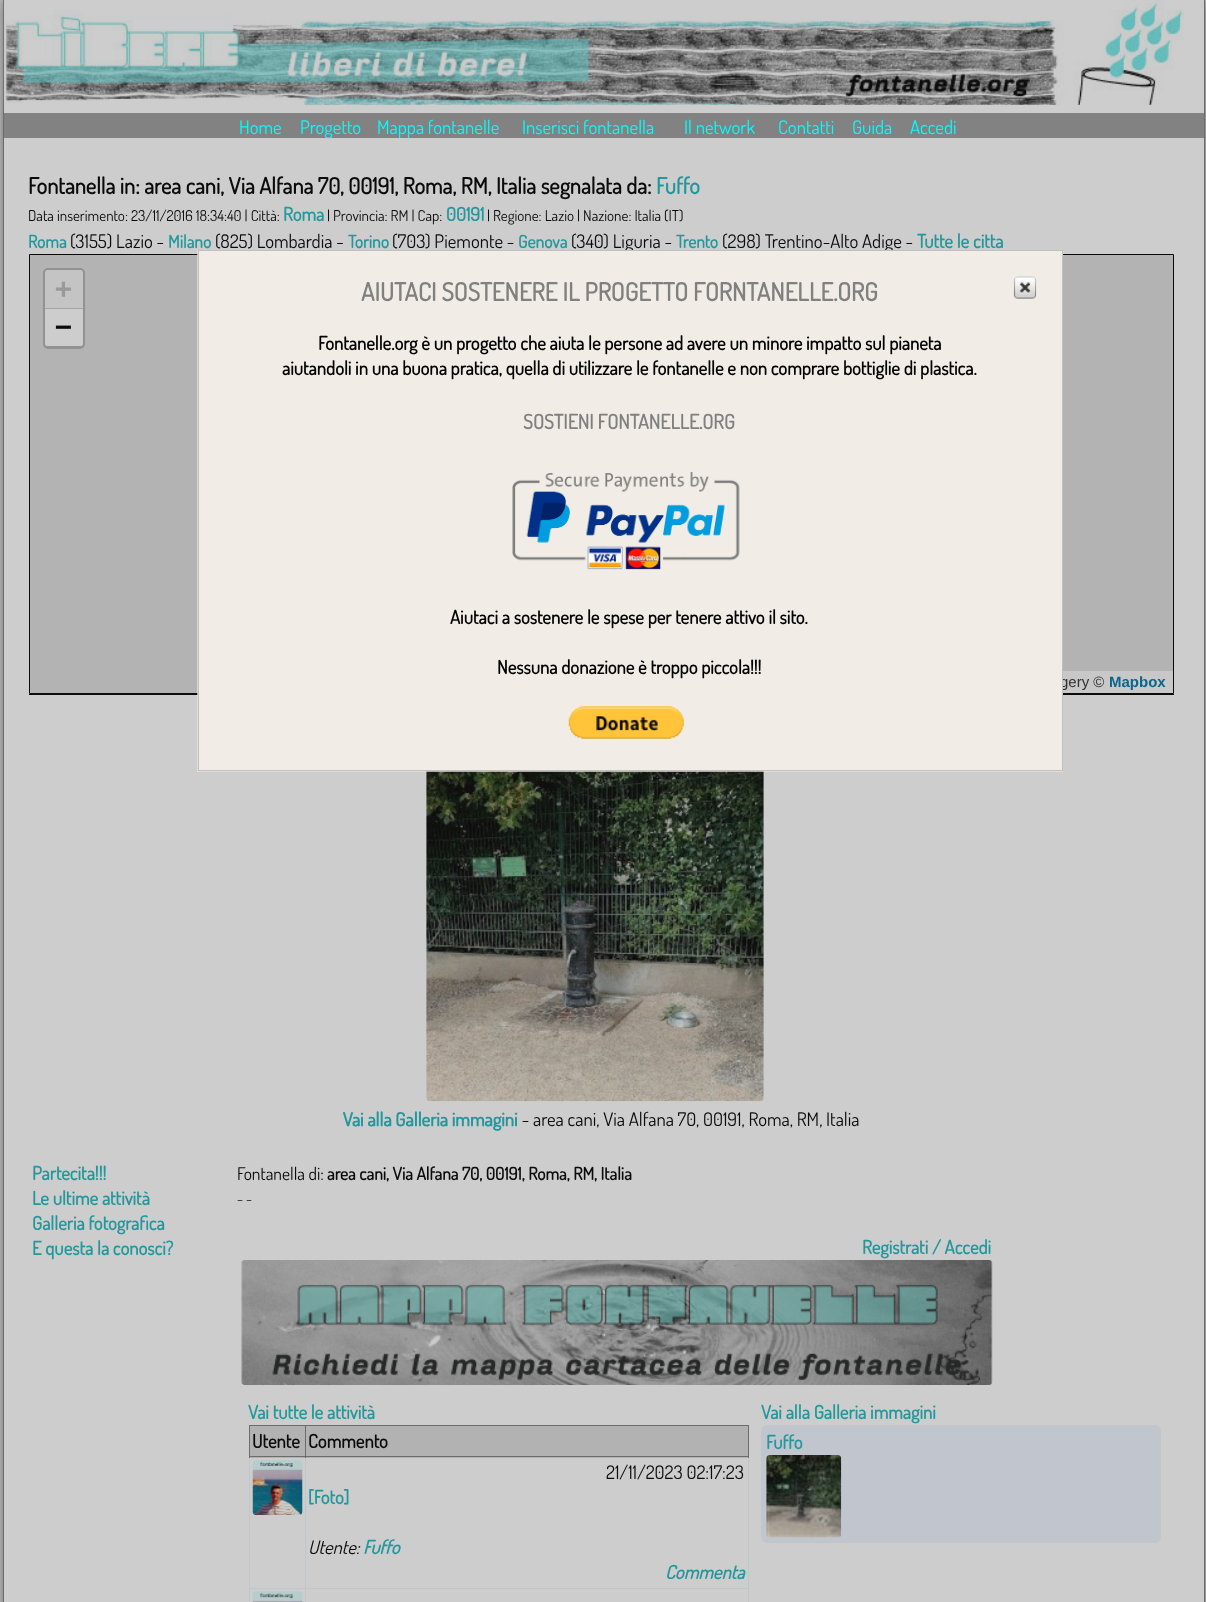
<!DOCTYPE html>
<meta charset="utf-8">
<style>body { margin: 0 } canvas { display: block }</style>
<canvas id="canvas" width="1206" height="1602"></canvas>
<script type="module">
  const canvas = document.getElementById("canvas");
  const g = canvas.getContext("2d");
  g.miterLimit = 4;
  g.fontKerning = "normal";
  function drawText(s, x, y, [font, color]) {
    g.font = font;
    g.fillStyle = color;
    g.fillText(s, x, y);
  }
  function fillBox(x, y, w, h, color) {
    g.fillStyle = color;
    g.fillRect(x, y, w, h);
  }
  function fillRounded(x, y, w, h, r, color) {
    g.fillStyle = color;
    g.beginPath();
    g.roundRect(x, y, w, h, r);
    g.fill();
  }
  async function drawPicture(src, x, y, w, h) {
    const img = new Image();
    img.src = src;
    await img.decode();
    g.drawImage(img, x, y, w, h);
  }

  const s1 = ["18.75px Dosis", "#00FFFF"];
  const s2 = ["bold 22.5px Dosis", "#0B0B0B"];
  const s3 = ["bold 22.5px Dosis", "#23989C"];
  const s4 = ["15px Dosis", "#0B0B0B"];
  const s5 = ["bold 18.75px Dosis", "#23989C"];
  const s6 = ["bold 17.5px Dosis", "#23989C"];
  const s7 = ["18.75px Dosis", "#0B0B0B"];
  const s8 = ["bold 28px DejaVu Sans Mono", "#999999"];
  const s9 = ["bold 28px DejaVu Sans Mono", "#0B0B0B"];
  const s10 = ["15px Liberation Sans", "#323232"];
  const s11 = ["bold 15px Liberation Sans", "#0B668B"];
  const s12 = ["17.5px Dosis", "#0B0B0B"];
  const s13 = ["bold 17.5px Dosis", "#0B0B0B"];
  const s14 = ["bold 18.75px Dosis", "#0B0B0B"];
  const s15 = ["italic 18.75px Dosis", "#0B0B0B"];
  const s16 = ["italic bold 18.75px Dosis", "#23989C"];
  const s17 = ["bold 25px Dosis", "#808080"];
  const s18 = ["bold 18.75px Dosis", "#000000"];
  const s19 = ["bold 20px Dosis", "#808080"];

  fillBox(0, 0, 1206, 1602, "#C0C0C0");
  g.fillStyle = "#6C6C6C";
  g.filter = "blur(6px)";
  g.beginPath();
  g.rect(3, 0, 1202, 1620);
  g.fill();
  g.filter = "none";
  fillBox(4, 0, 1200, 1602, "#CDCDCD");
  fillBox(1204, 0, 1, 1602, "#6C6C6C");
  fillBox(3, 0, 1, 1602, "#6C6C6C");
  await drawPicture("pic1.png", 3, 0, 1182, 105);
  fillBox(4, 113, 1200, 25, "#828282");
  drawText("Home", 239, 134, s1);
  drawText("Progetto", 300, 134, s1);
  drawText("Mappa fontanelle", 377, 134, s1);
  drawText("Inserisci fontanella", 522, 134, s1);
  drawText("Il network", 684, 134, s1);
  drawText("Contatti", 778, 134, s1);
  drawText("Guida", 852, 134, s1);
  drawText("Accedi", 910, 134, s1);
  drawText("Fontanella in: area cani, Via Alfana 70, 00191, Roma, RM, Italia segnalata da:", 28, 194, s2);
  drawText("Fuffo", 656, 194, s3);
  drawText("Data inserimento: 23/11/2016 18:34:40 | Città:", 28, 221, s4);
  drawText("Roma", 283, 221, s5);
  drawText("| Provincia: RM | Cap:", 327, 221, s4);
  drawText("00191", 446, 221, s5);
  drawText("| Regione: Lazio | Nazione: Italia (IT)", 487, 221, s4);
  drawText("Roma", 28, 248, s6);
  drawText("(3155) Lazio -", 70, 248, s7);
  drawText("Milano", 168, 248, s6);
  drawText("(825) Lombardia -", 215, 248, s7);
  drawText("Torino", 348, 248, s6);
  drawText("(703) Piemonte -", 392, 248, s7);
  drawText("Genova", 518, 248, s6);
  drawText("(340) Liguria -", 571, 248, s7);
  drawText("Trento", 676, 248, s6);
  drawText("(298) Trentino-Alto Adige -", 722, 248, s7);
  drawText("Tutte le citta", 917, 248, s5);
  g.fillStyle = "#B3B3B3";
  g.beginPath();
  g.rect(29.5, 254.5, 1144, 439);
  g.fill();
  g.strokeStyle = "#0B0B0B";
  g.stroke();
  g.beginPath();
  g.roundRect(44.5, 269.5, 39, 78, 3.5);
  g.strokeStyle = "#929292";
  g.lineWidth = 3;
  g.stroke();
  g.fillStyle = "#C4C4C4";
  g.beginPath();
  g.roundRect(45, 270, 38, 39, [2.5, 2.5, 0, 0]);
  g.fill();
  fillBox(45, 308, 38, 1, "#A6A6A6");
  drawText("+", 55, 298, s8);
  g.fillStyle = "#CDCDCD";
  g.beginPath();
  g.roundRect(45, 309, 38, 37, [0, 0, 2.5, 2.5]);
  g.fill();
  drawText("−", 55, 336, s9);
  fillBox(1063, 671, 110, 22, "#C8C8C8");
  drawText("gery ©", 1060, 687, s10);
  drawText("Mapbox", 1109, 687, s11);
  fillBox(29, 694, 1145, 1, "#0B0B0B");
  await drawPicture("pic2.png", 343, 771, 516, 360);
  drawText("Partecita!!!", 32, 1180, s5);
  drawText("Le ultime attività", 32, 1205, s5);
  drawText("Galleria fotografica", 32, 1230, s5);
  drawText("E questa la conosci?", 32, 1255, s5);
  drawText("Fontanella di:", 237, 1180, s12);
  drawText("area cani, Via Alfana 70, 00191, Roma, RM, Italia", 327, 1180, s13);
  drawText("- -", 237, 1204, s4);
  drawText("Registrati / Accedi", 862, 1254, s5);
  await drawPicture("pic3.png", 241, 1260, 752, 125);
  drawText("Vai tutte le attività", 248, 1419, s5);
  fillBox(250, 1426, 498, 32, "#B2B2B2");
  fillBox(305, 1425, 444, 1, "#6C6C6C");
  fillBox(305, 1588, 444, 1, "#C1C5CD");
  fillBox(748, 1456, 1, 146, "#C1C5CD");
  fillBox(748, 1425, 1, 33, "#6C6C6C");
  fillBox(305, 1588, 1, 14, "#C1C5CD");
  fillBox(249, 1588, 57, 1, "#C1C5CD");
  fillBox(305, 1456, 1, 133, "#C1C5CD");
  fillBox(305, 1456, 444, 1, "#6C6C6C");
  fillBox(305, 1425, 1, 33, "#6C6C6C");
  fillBox(249, 1425, 57, 1, "#6C6C6C");
  fillBox(249, 1456, 1, 146, "#C1C5CD");
  fillBox(249, 1456, 57, 1, "#6C6C6C");
  fillBox(249, 1425, 1, 33, "#6C6C6C");
  drawText("Utente", 252, 1448, s14);
  drawText("Commento", 308, 1448, s14);
  await drawPicture("pic4.png", 252, 1591, 51, 11);
  await drawPicture("pic5.png", 252, 1460, 51, 55);
  drawText("21/11/2023 02:17:23", 606, 1479, s7);
  drawText("[Foto]", 308, 1504, s5);
  drawText("Utente:", 308, 1554, s15);
  drawText("Fuffo", 363, 1554, s16);
  drawText("Commenta", 665, 1579, s16);
  drawText("Vai alla Galleria immagini", 761, 1419, s5);
  fillRounded(761, 1425, 400, 118, 6, "#C1C5CD");
  drawText("Fuffo", 766, 1449, s5);
  await drawPicture("pic6.png", 766, 1455, 76, 83);
  fillBox(199, 251, 863, 519, "#FFFFFF");
  fillBox(197, 250, 866, 522, "rgba(235, 230, 220, 0.71)");
  g.strokeStyle = "#C0C0C0";
  g.lineWidth = 1;
  g.strokeRect(198.5, 250.5, 864, 520);
  drawText("AIUTACI SOSTENERE IL PROGETTO FORNTANELLE.ORG", 361, 301, s17);
  await drawPicture("pic7.png", 1013, 276, 24, 23);
  drawText("Fontanelle.org è un progetto che aiuta le persone ad avere un minore impatto sul pianeta", 318, 350, s18);
  drawText("aiutandoli in una buona pratica, quella di utilizzare le fontanelle e non comprare bottiglie di plastica.", 282, 375, s18);
  drawText("SOSTIENI FONTANELLE.ORG", 523, 429, s19);
  await drawPicture("pic8.png", 512, 472, 228, 98);
  drawText("Aiutaci a sostenere le spese per tenere attivo il sito.", 450, 624, s18);
  drawText("Nessuna donazione è troppo piccola!!!", 497, 674, s18);
  await drawPicture("pic9.png", 568, 706, 116, 33);
</script>
